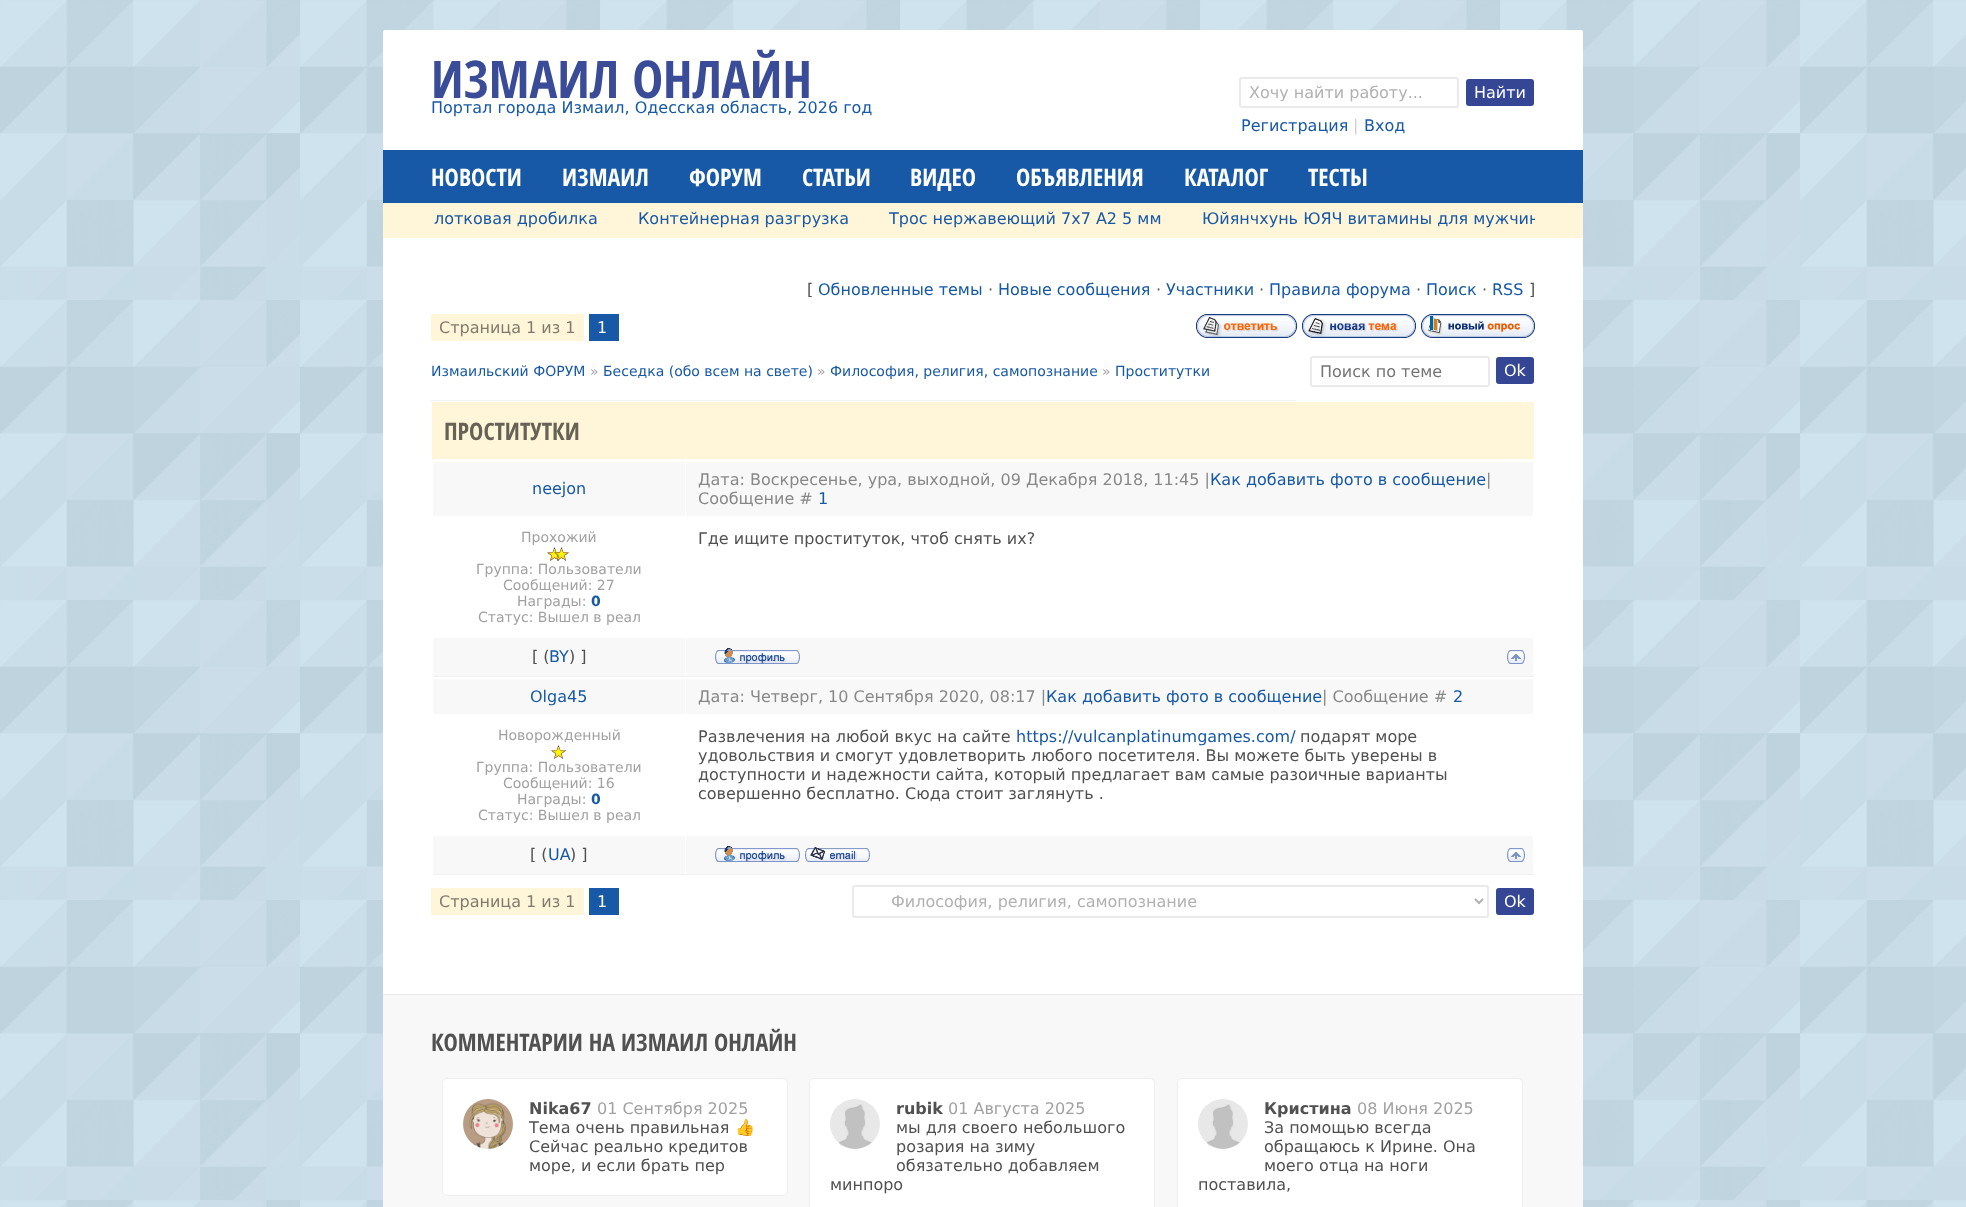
<!DOCTYPE html>
<meta charset="utf-8">
<style>body { margin: 0 } canvas { display: block }</style>
<canvas id="canvas" width="1966" height="1207"></canvas>
<script type="module">
  const canvas = document.getElementById("canvas");
  const g = canvas.getContext("2d");
  g.miterLimit = 4;
  g.fontKerning = "normal";
  function drawText(s, x, y, [font, color]) {
    g.font = font;
    g.fillStyle = color;
    g.fillText(s, x, y);
  }
  function fillBox(x, y, w, h, color) {
    g.fillStyle = color;
    g.fillRect(x, y, w, h);
  }
  function fillRounded(x, y, w, h, r, color) {
    g.fillStyle = color;
    g.beginPath();
    g.roundRect(x, y, w, h, r);
    g.fill();
  }
  async function drawPicture(src, x, y, w, h) {
    const img = new Image();
    img.src = src;
    await img.decode();
    g.drawImage(img, x, y, w, h);
  }

  const s1 = ["bold 52px Open Sans Condensed", "#3A4C98"];
  const s2 = ["16px DejaVu Sans", "#1759A6"];
  const s3 = ["16px DejaVu Sans", "#B1B1B1"];
  const s4 = ["16px DejaVu Sans", "#FFFFFF"];
  const s5 = ["16px DejaVu Sans", "#D1D1D1"];
  const s6 = ["bold 24px Open Sans Condensed", "#FFFFFF"];
  const s7 = ["16px DejaVu Sans", "#515151"];
  const s8 = ["16px DejaVu Sans", "#807B6C"];
  const s9 = ["14px DejaVu Sans", "#1759A6"];
  const s10 = ["14px DejaVu Sans", "#A1A1A1"];
  const s11 = ["16px DejaVu Sans", "#757575"];
  const s12 = ["bold 24px Open Sans Condensed", "#666256"];
  const s13 = ["16px DejaVu Sans", "#888888"];
  const s14 = ["bold 14px DejaVu Sans", "#1759A6"];
  const s15 = ["bold 24px Open Sans Condensed", "#515151"];
  const s16 = ["bold 16px DejaVu Sans", "#515151"];
  const s17 = ["16px DejaVu Sans", "#A1A1A1"];
  const s18 = ["16px Noto Color Emoji", "#515151"];

  fillBox(0, 0, 1966, 1207, "#CEE6F3");
  await drawPicture("pic1.png", 0, 0, 1966, 1207);
  fillRounded(383, 30, 1200, 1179, 2, "#FFFFFF");
  drawText("ИЗМАИЛ ОНЛАЙН", 431, 98, s1);
  drawText("Портал города Измаил, Одесская область, 2026 год", 431, 113, s2);
  g.beginPath();
  g.roundRect(1240, 78, 218, 29, 2);
  g.strokeStyle = "#EAEAEA";
  g.lineWidth = 2;
  g.stroke();
  drawText("Хочу найти работу...", 1249, 98, s3);
  fillRounded(1466, 79, 68, 27, 3, "#344694");
  drawText("Найти", 1474, 98, s4);
  drawText("Регистрация", 1241, 131, s2);
  drawText("|", 1353, 131, s5);
  drawText("Вход", 1364, 131, s2);
  fillBox(383, 150, 1200, 53, "#1759A6");
  drawText("НОВОСТИ", 431, 186, s6);
  drawText("ИЗМАИЛ", 562, 186, s6);
  drawText("ФОРУМ", 689, 186, s6);
  drawText("СТАТЬИ", 802, 186, s6);
  drawText("ВИДЕО", 910, 186, s6);
  drawText("ОБЪЯВЛЕНИЯ", 1016, 186, s6);
  drawText("КАТАЛОГ", 1184, 186, s6);
  drawText("ТЕСТЫ", 1308, 186, s6);
  fillBox(383, 203, 1200, 35, "#FFF5D8");
  drawText("лотковая дробилка", 434, 224, s2);
  drawText("Контейнерная разгрузка", 638, 224, s2);
  drawText("Трос нержавеющий 7х7 А2 5 мм", 889, 224, s2);
  g.save();
  g.beginPath();
  g.rect(431, 211, 1104, 17);
  g.clip();
  drawText("Юйянчхунь ЮЯЧ витамины для мужчин", 1202, 224, s2);
  g.restore();
  drawText("[", 807, 295, s7);
  drawText("Обновленные темы", 818, 295, s2);
  drawText("·", 988, 295, s7);
  drawText("Новые сообщения", 998, 295, s2);
  drawText("·", 1156, 295, s7);
  drawText("Участники", 1166, 295, s2);
  drawText("·", 1259, 295, s7);
  drawText("Правила форума", 1269, 295, s2);
  drawText("·", 1416, 295, s7);
  drawText("Поиск", 1426, 295, s2);
  drawText("·", 1482, 295, s7);
  drawText("RSS", 1492, 295, s2);
  drawText("]", 1529, 295, s7);
  fillBox(431, 314, 153, 27, "#FFF5D8");
  drawText("Страница 1 из 1", 439, 333, s8);
  fillBox(589, 314, 30, 27, "#1759A6");
  drawText("1", 597, 333, s4);
  await drawPicture("pic2.png", 1196, 314, 101, 24);
  await drawPicture("pic3.png", 1302, 314, 114, 24);
  await drawPicture("pic4.png", 1421, 314, 114, 24);
  fillBox(431, 400, 865, 1, "#F2F2F2");
  drawText("Измаильский ФОРУМ", 431, 376, s9);
  drawText("»", 590, 376, s10);
  drawText("Беседка (обо всем на свете)", 603, 376, s9);
  drawText("»", 817, 376, s10);
  drawText("Философия, религия, самопознание", 830, 376, s9);
  drawText("»", 1102, 376, s10);
  drawText("Проститутки", 1115, 376, s9);
  g.beginPath();
  g.roundRect(1311, 357, 178, 29, 2);
  g.stroke();
  drawText("Поиск по теме", 1320, 377, s11);
  fillRounded(1496, 357, 38, 27, 3, "#344694");
  drawText("Ok", 1504, 376, s4);
  fillBox(432, 402, 1102, 57, "#FFF5D8");
  drawText("ПРОСТИТУТКИ", 444, 440, s12);
  fillBox(433, 462, 252, 54, "#F8F8F8");
  drawText("neejon", 532, 494, s2);
  fillBox(686, 462, 847, 54, "#F8F8F8");
  drawText("Дата: Воскресенье, ура, выходной, 09 Декабря 2018, 11:45 |", 698, 485, s13);
  drawText("Как добавить фото в сообщение", 1210, 485, s2);
  drawText("|", 1486, 485, s13);
  drawText("Сообщение #", 698, 504, s13);
  drawText("1", 818, 504, s2);
  drawText("Прохожий", 521, 542, s10);
  await drawPicture("pic5.png", 547, 547, 22, 14);
  drawText("Группа: Пользователи", 476, 574, s10);
  drawText("Сообщений: 27", 503, 590, s10);
  drawText("Награды:", 517, 606, s10);
  drawText("0", 591, 606, s14);
  drawText("Статус: Вышел в реал", 478, 622, s10);
  drawText("Где ищите проституток, чтоб снять их?", 698, 544, s7);
  fillBox(433, 638, 252, 38, "#F8F8F8");
  fillBox(685, 676, 849, 1, "#F1F1F1");
  fillBox(685, 676, 1, 1, "#FFFFFF");
  fillBox(432, 676, 254, 1, "#F1F1F1");
  fillBox(432, 676, 1, 1, "#FFFFFF");
  drawText("[ (", 532, 662, s7);
  drawText("BY", 549, 662, s2);
  drawText(") ]", 569, 662, s7);
  fillBox(686, 638, 847, 38, "#F8F8F8");
  await drawPicture("pic6.png", 715, 648, 85, 16);
  await drawPicture("pic7.png", 1507, 650, 18, 14);
  fillBox(433, 679, 252, 35, "#F8F8F8");
  drawText("Olga45", 530, 702, s2);
  fillBox(686, 679, 847, 35, "#F8F8F8");
  drawText("Дата: Четверг, 10 Сентября 2020, 08:17 |", 698, 702, s13);
  drawText("Как добавить фото в сообщение", 1046, 702, s2);
  drawText("| Сообщение #", 1322, 702, s13);
  drawText("2", 1453, 702, s2);
  drawText("Новорожденный", 498, 740, s10);
  await drawPicture("pic8.png", 551, 745, 15, 14);
  drawText("Группа: Пользователи", 476, 772, s10);
  drawText("Сообщений: 16", 503, 788, s10);
  drawText("Награды:", 517, 804, s10);
  drawText("0", 591, 804, s14);
  drawText("Статус: Вышел в реал", 478, 820, s10);
  drawText("Развлечения на любой вкус на сайте", 698, 742, s7);
  drawText("https://vulcanplatinumgames.com/", 1016, 742, s2);
  drawText("подарят море", 1300, 742, s7);
  drawText("удовольствия и смогут удовлетворить любого посетителя. Вы можете быть уверены в", 698, 761, s7);
  drawText("доступности и надежности сайта, который предлагает вам самые разоичные варианты", 698, 780, s7);
  drawText("совершенно бесплатно. Сюда стоит заглянуть .", 698, 799, s7);
  fillBox(433, 836, 252, 38, "#F8F8F8");
  fillBox(685, 874, 849, 1, "#F1F1F1");
  fillBox(685, 874, 1, 1, "#FFFFFF");
  fillBox(432, 874, 254, 1, "#F1F1F1");
  fillBox(432, 874, 1, 1, "#FFFFFF");
  drawText("[ (", 530, 860, s7);
  drawText("UA", 548, 860, s2);
  drawText(") ]", 570, 860, s7);
  fillBox(686, 836, 847, 38, "#F8F8F8");
  await drawPicture("pic6.png", 715, 846, 85, 16);
  await drawPicture("pic9.png", 805, 847, 65, 15);
  await drawPicture("pic7.png", 1507, 848, 18, 14);
  fillBox(431, 888, 153, 27, "#FFF5D8");
  drawText("Страница 1 из 1", 439, 907, s8);
  fillBox(589, 888, 30, 27, "#1759A6");
  drawText("1", 597, 907, s4);
  g.beginPath();
  g.roundRect(853, 886, 635, 31, 2);
  g.stroke();
  g.beginPath();
  g.moveTo(1475, 899);
  g.lineTo(1479, 903);
  g.lineTo(1483, 899);
  g.strokeStyle = "#B1B1B1";
  g.stroke();
  drawText("Философия, религия, самопознание", 891, 907, s3);
  fillRounded(1496, 888, 38, 27, 3, "#344694");
  drawText("Ok", 1504, 907, s4);
  fillBox(383, 995, 1200, 212, "#F8F8F8");
  fillBox(383, 994, 1200, 1, "#EAEAEA");
  drawText("КОММЕНТАРИИ НА ИЗМАИЛ ОНЛАЙН", 431, 1051, s15);
  g.fillStyle = "#FFFFFF";
  g.beginPath();
  g.roundRect(442.5, 1078.5, 345, 117, 4.5);
  g.fill();
  g.strokeStyle = "#EFEFEF";
  g.lineWidth = 1;
  g.stroke();
  await drawPicture("pic10.png", 463, 1099, 50, 50);
  drawText("Nika67", 529, 1114, s16);
  drawText("01 Сентября 2025", 597, 1114, s17);
  drawText("Тема очень правильная", 529, 1133, s7);
  drawText("👍", 735, 1133, s18);
  drawText("Сейчас реально кредитов", 529, 1152, s7);
  drawText("море, и если брать пер", 529, 1171, s7);
  g.fillStyle = "#FFFFFF";
  g.beginPath();
  g.roundRect(809.5, 1078.5, 345, 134, 4.5);
  g.fill();
  g.stroke();
  await drawPicture("pic11.png", 830, 1099, 50, 50);
  drawText("rubik", 896, 1114, s16);
  drawText("01 Августа 2025", 948, 1114, s17);
  drawText("мы для своего небольшого", 896, 1133, s7);
  drawText("розария на зиму", 896, 1152, s7);
  drawText("обязательно добавляем", 896, 1171, s7);
  drawText("минпоро", 830, 1190, s7);
  g.fillStyle = "#FFFFFF";
  g.beginPath();
  g.roundRect(1177.5, 1078.5, 345, 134, 4.5);
  g.fill();
  g.stroke();
  await drawPicture("pic11.png", 1198, 1099, 50, 50);
  drawText("Кристина", 1264, 1114, s16);
  drawText("08 Июня 2025", 1357, 1114, s17);
  drawText("За помощью всегда", 1264, 1133, s7);
  drawText("обращаюсь к Иpине. Она", 1264, 1152, s7);
  drawText("моего отца на ноги", 1264, 1171, s7);
  drawText("поставила,", 1198, 1190, s7);
</script>
